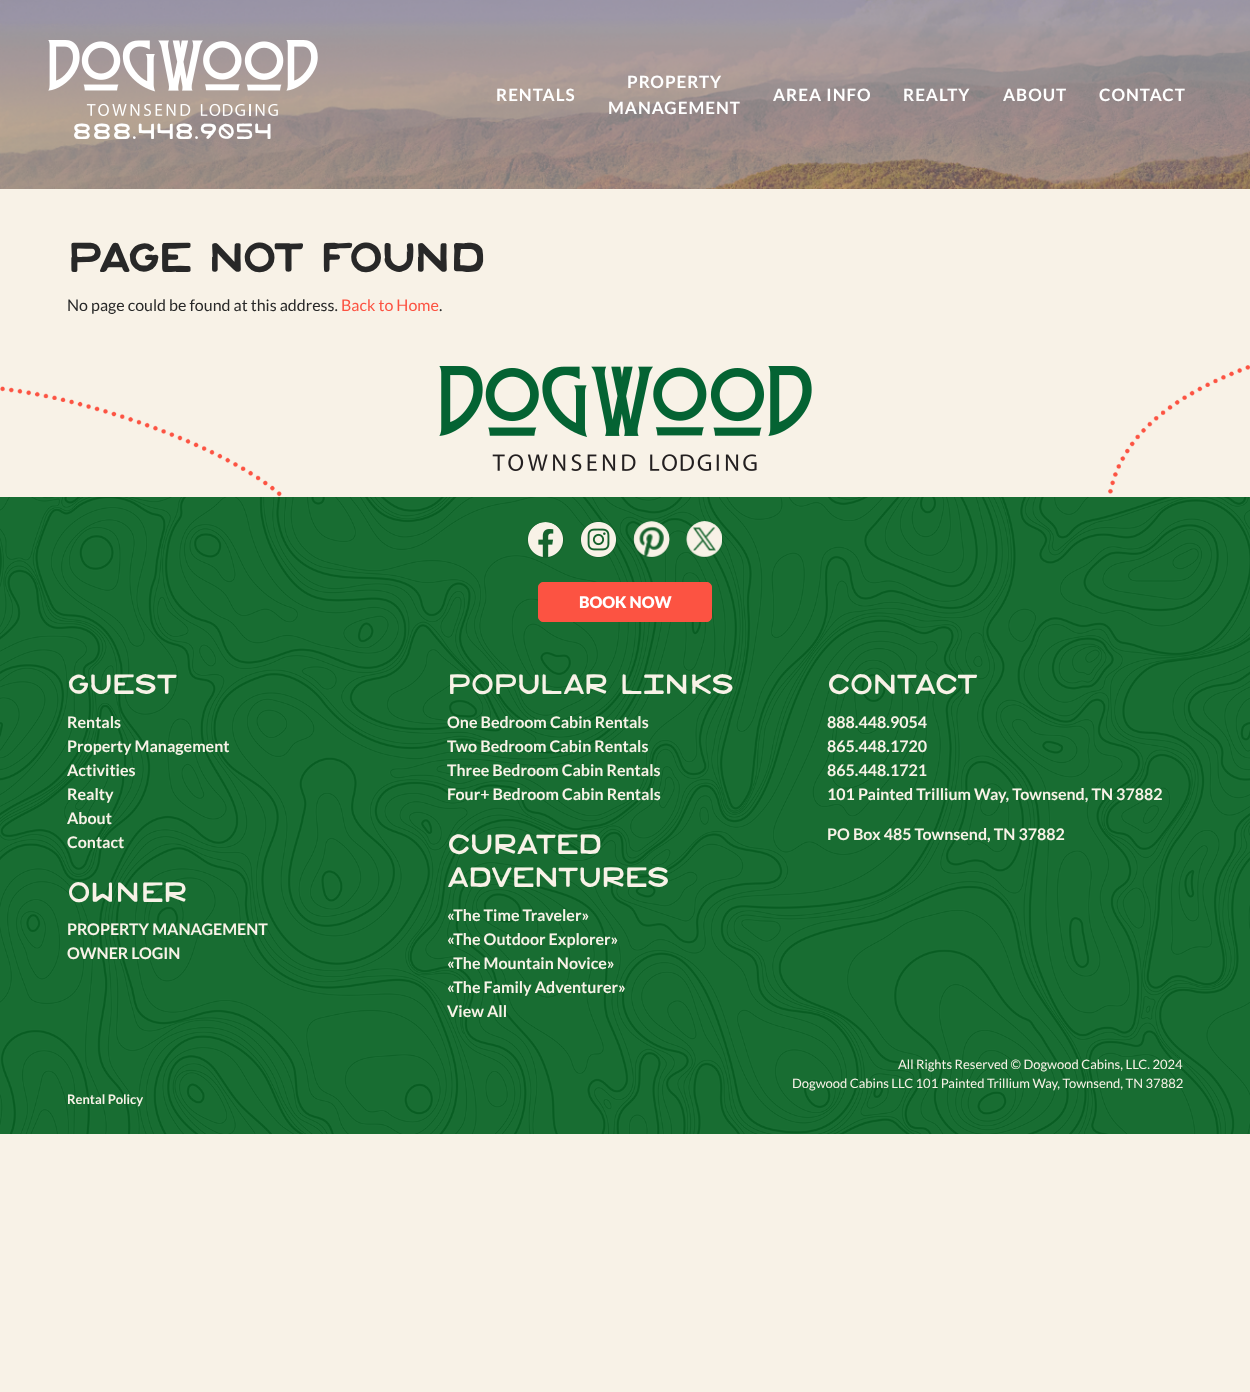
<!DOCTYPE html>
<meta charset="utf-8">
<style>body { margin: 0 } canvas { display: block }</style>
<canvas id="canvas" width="1250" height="1392"></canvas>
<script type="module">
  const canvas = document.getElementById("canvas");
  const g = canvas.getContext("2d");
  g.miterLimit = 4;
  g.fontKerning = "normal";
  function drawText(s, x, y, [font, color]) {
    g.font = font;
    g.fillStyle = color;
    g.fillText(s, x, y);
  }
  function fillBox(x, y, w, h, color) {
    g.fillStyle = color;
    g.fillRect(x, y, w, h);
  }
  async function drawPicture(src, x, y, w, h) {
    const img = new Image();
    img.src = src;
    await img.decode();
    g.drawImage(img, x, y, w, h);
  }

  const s1 = ["bold 17px Lato", "#FFFFFF"];
  const s2 = ["22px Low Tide", "#FFFFFF"];
  const s3 = ["bold 40px Low Tide", "#282828"];
  const s4 = ["16px Lato", "#282828"];
  const s5 = ["16px Lato", "#FC5342"];
  const s6 = ["900 16px Lato", "#FFFFFF"];
  const s7 = ["28px Low Tide", "#F8F2E7"];
  const s8 = ["bold 16px Lato", "#F8F2E7"];
  const s9 = ["13px Lato", "#F8F2E7"];
  const s10 = ["bold 13px Lato", "#F8F2E7"];

  fillBox(0, 0, 1250, 1392, "#F8F2E7");
  await drawPicture("pic1.png", 0, 0, 1250, 189);
  g.letterSpacing = "1px";
  drawText("RENTALS", 496, 101, s1);
  drawText("PROPERTY", 627, 88, s1);
  drawText("MANAGEMENT", 608, 114, s1);
  drawText("AREA INFO", 773, 101, s1);
  drawText("REALTY", 903, 101, s1);
  drawText("ABOUT", 1003, 101, s1);
  drawText("CONTACT", 1099, 101, s1);
  await drawPicture("pic2.png", 48, 40, 270, 76);
  g.letterSpacing = "0px";
  drawText("888.448.9054", 72, 139, s2);
  drawText("Page Not Found", 67, 272, s3);
  drawText("No page could be found at this address.", 67, 311, s4);
  drawText("Back to Home", 341, 311, s5);
  drawText(".", 439, 311, s4);
  await drawPicture("pic3.png", 0, 365, 1250, 132);
  await drawPicture("pic4.png", 439, 366, 373, 105);
  await drawPicture("pic5.png", 0, 497, 1250, 637);
  await drawPicture("pic6.png", 527, 522, 37, 36);
  await drawPicture("pic7.png", 580, 521, 37, 37);
  await drawPicture("pic8.png", 633, 521, 37, 37);
  await drawPicture("pic9.png", 686, 521, 37, 37);
  g.fillStyle = "#FC5342";
  g.beginPath();
  g.roundRect(538.5, 582.5, 173, 39, 4.5);
  g.fill();
  g.strokeStyle = "#FC5342";
  g.stroke();
  drawText("BOOK NOW", 579, 608, s6);
  drawText("GUEST", 67, 694, s7);
  drawText("Rentals", 67, 728, s8);
  drawText("Property Management", 67, 752, s8);
  drawText("Activities", 67, 776, s8);
  drawText("Realty", 67, 800, s8);
  drawText("About", 67, 824, s8);
  drawText("Contact", 67, 848, s8);
  drawText("OWNER", 67, 902, s7);
  drawText("PROPERTY MANAGEMENT", 67, 935, s8);
  drawText("OWNER LOGIN", 67, 959, s8);
  drawText("POPULAR LINKS", 447, 694, s7);
  drawText("One Bedroom Cabin Rentals", 447, 728, s8);
  drawText("Two Bedroom Cabin Rentals", 447, 752, s8);
  drawText("Three Bedroom Cabin Rentals", 447, 776, s8);
  drawText("Four+ Bedroom Cabin Rentals", 447, 800, s8);
  drawText("CURATED", 447, 854, s7);
  drawText("ADVENTURES", 447, 887, s7);
  drawText("«The Time Traveler»", 447, 921, s8);
  drawText("«The Outdoor Explorer»", 447, 945, s8);
  drawText("«The Mountain Novice»", 447, 969, s8);
  drawText("«The Family Adventurer»", 447, 993, s8);
  drawText("View All", 447, 1017, s8);
  drawText("CONTACT", 827, 694, s7);
  drawText("888.448.9054", 827, 728, s8);
  drawText("865.448.1720", 827, 752, s8);
  drawText("865.448.1721", 827, 776, s8);
  drawText("101 Painted Trillium Way, Townsend, TN 37882", 827, 800, s8);
  drawText("PO Box 485 Townsend, TN 37882", 827, 840, s8);
  drawText("All Rights Reserved © Dogwood Cabins, LLC. 2024", 898, 1069, s9);
  drawText("Dogwood Cabins LLC 101 Painted Trillium Way, Townsend, TN 37882", 792, 1088, s9);
  drawText("Rental Policy", 67, 1104, s10);
</script>
